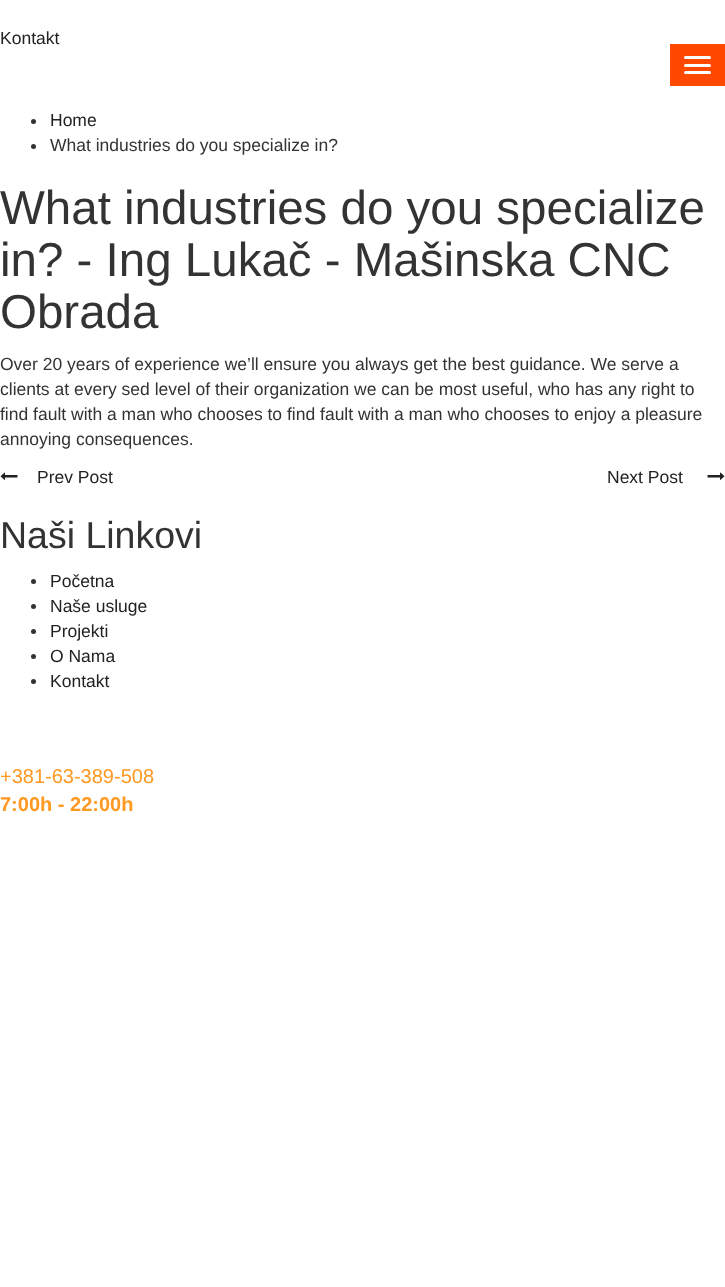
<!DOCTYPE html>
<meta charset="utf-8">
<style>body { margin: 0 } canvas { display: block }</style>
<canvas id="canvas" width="725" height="1287"></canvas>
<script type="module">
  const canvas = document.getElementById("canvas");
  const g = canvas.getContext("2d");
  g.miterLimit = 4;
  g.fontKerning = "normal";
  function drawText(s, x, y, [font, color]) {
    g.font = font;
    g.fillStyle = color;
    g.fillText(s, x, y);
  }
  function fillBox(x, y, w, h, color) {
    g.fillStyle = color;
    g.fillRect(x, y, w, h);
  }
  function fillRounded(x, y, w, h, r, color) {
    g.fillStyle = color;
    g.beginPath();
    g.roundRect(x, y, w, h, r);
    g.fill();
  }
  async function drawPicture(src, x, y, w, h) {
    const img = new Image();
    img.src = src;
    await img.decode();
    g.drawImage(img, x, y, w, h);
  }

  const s1 = ["17.5px Liberation Sans", "#222222"];
  const s2 = ["17.5px Liberation Sans", "#333333"];
  const s3 = ["47.5px Liberation Sans", "#333333"];
  const s4 = ["37.5px Liberation Sans", "#333333"];
  const s5 = ["20px Liberation Sans", "#FF9922"];
  const s6 = ["bold 20px Liberation Sans", "#FF9922"];

  fillBox(0, 0, 725, 1287, "#FFFFFF");
  drawText("Kontakt", 0, 44, s1);
  fillBox(670, 44, 55, 42, "#FF4800");
  fillRounded(684, 56, 27, 3, 1.5, "#FFFFFF");
  fillRounded(684, 64, 27, 3, 1.5, "#FFFFFF");
  fillRounded(684, 71, 27, 3, 1.5, "#FFFFFF");
  g.fillStyle = "#333333";
  g.beginPath();
  g.arc(33.5, 121.5, 2.5, 0, Math.PI * 2);
  g.fill();
  drawText("Home", 50, 126, s1);
  g.fillStyle = "#333333";
  g.beginPath();
  g.arc(33.5, 146.5, 2.5, 0, Math.PI * 2);
  g.fill();
  drawText("What industries do you specialize in?", 50, 151, s2);
  drawText("What industries do you specialize", 0, 224, s3);
  drawText("in? - Ing Lukač - Mašinska CNC", 0, 276, s3);
  drawText("Obrada", 0, 328, s3);
  drawText("Over 20 years of experience we’ll ensure you always get the best guidance. We serve a", 0, 370, s2);
  drawText("clients at every sed level of their organization we can be most useful, who has any right to", 0, 395, s2);
  drawText("find fault with a man who chooses to find fault with a man who chooses to enjoy a pleasure", 0, 420, s2);
  drawText("annoying consequences.", 0, 445, s2);
  await drawPicture("pic1.png", 0, 472, 18, 8);
  drawText("Prev Post", 37, 483, s1);
  drawText("Next Post", 607, 483, s1);
  await drawPicture("pic2.png", 707, 472, 18, 8);
  drawText("Naši Linkovi", 0, 548, s4);
  g.beginPath();
  g.arc(33.5, 581.5, 2.5, 0, Math.PI * 2);
  g.fill();
  drawText("Početna", 50, 587, s1);
  g.fillStyle = "#333333";
  g.beginPath();
  g.arc(33.5, 606.5, 2.5, 0, Math.PI * 2);
  g.fill();
  drawText("Naše usluge", 50, 612, s1);
  g.fillStyle = "#333333";
  g.beginPath();
  g.arc(33.5, 631.5, 2.5, 0, Math.PI * 2);
  g.fill();
  drawText("Projekti", 50, 637, s1);
  g.fillStyle = "#333333";
  g.beginPath();
  g.arc(33.5, 656.5, 2.5, 0, Math.PI * 2);
  g.fill();
  drawText("O Nama", 50, 662, s1);
  g.fillStyle = "#333333";
  g.beginPath();
  g.arc(33.5, 681.5, 2.5, 0, Math.PI * 2);
  g.fill();
  drawText("Kontakt", 50, 687, s1);
  drawText("+381-63-389-508", 0, 783, s5);
  drawText("7:00h - 22:00h", 0, 811, s6);
</script>
